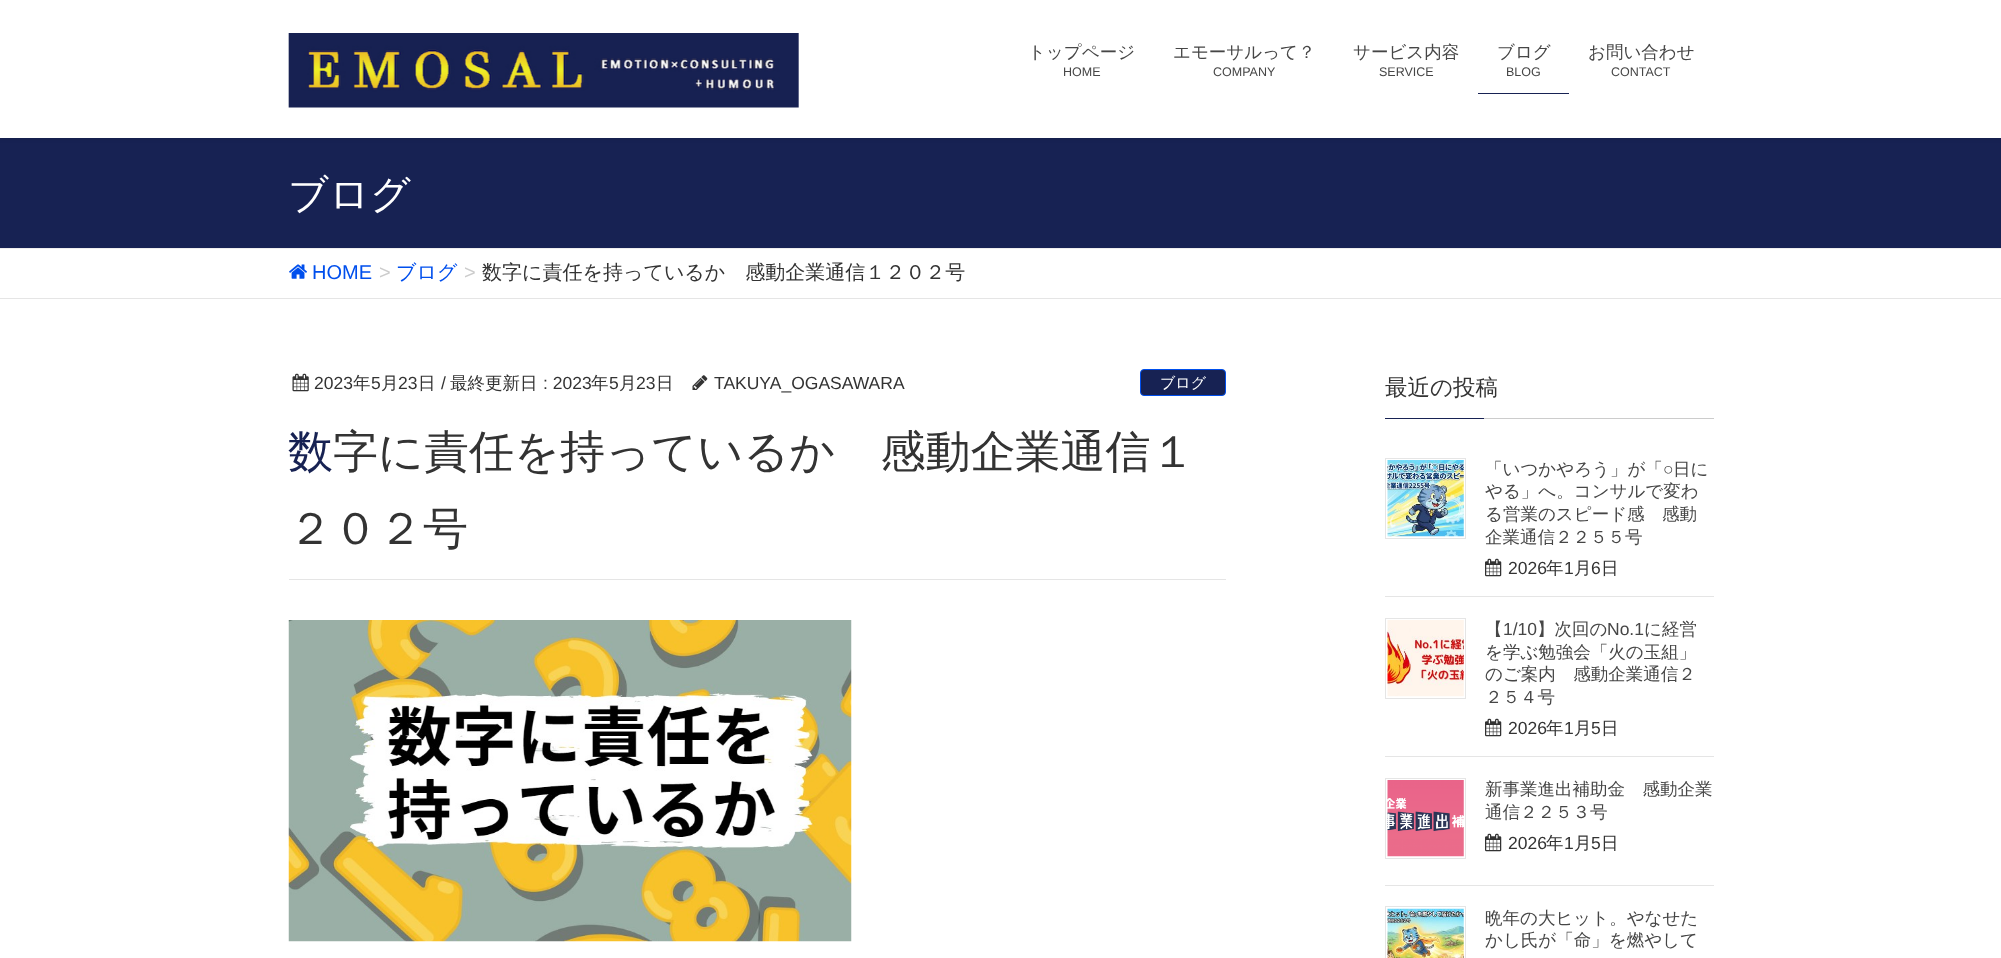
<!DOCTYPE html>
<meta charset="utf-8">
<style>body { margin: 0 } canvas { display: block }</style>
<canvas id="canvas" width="2001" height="958"></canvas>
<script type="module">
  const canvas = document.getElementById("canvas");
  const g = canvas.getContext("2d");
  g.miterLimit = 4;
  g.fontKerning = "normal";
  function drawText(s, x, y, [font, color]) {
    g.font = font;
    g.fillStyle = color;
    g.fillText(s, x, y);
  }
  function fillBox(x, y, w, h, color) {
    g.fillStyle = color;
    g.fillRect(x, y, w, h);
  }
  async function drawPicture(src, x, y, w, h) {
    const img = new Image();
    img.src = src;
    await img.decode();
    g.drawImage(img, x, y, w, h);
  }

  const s1 = ["500 17.5px WenQuanYi Zen Hei", "#464646"];
  const s2 = ["12.5px Liberation Sans", "#464646"];
  const s3 = ["500 40px WenQuanYi Zen Hei", "#FFFFFF"];
  const s4 = ["20px Liberation Sans", "#004FED"];
  const s5 = ["20px Liberation Sans", "#CCCCCC"];
  const s6 = ["500 20px WenQuanYi Zen Hei", "#004FED"];
  const s7 = ["500 20px WenQuanYi Zen Hei", "#333333"];
  const s8 = ["17.5px Liberation Sans", "#333333"];
  const s9 = ["500 17.5px WenQuanYi Zen Hei", "#333333"];
  const s10 = ["500 15px WenQuanYi Zen Hei", "#FFFFFF"];
  const s11 = ["500 45px Noto Sans", "#172253"];
  const s12 = ["500 45px WenQuanYi Zen Hei", "#333333"];
  const s13 = ["500 22.5px WenQuanYi Zen Hei", "#333333"];
  const s14 = ["17.5px Liberation Sans", "#464646"];

  fillBox(0, 0, 2001, 958, "#FFFFFF");
  fillBox(0, 138, 2001, 110, "#172253");
  g.fillStyle = "rgba(0, 0, 0, 0.1)";
  g.filter = "blur(2px)";
  g.beginPath();
  g.rect(0, 1, 2001, 138);
  g.fill();
  g.filter = "none";
  fillBox(0, 0, 2001, 138, "#FFFFFF");
  await drawPicture("pic1.png", 288, 33, 511, 75);
  drawText("トップページ", 1028, 58, s1);
  drawText("HOME", 1063, 76, s2);
  drawText("エモーサルって？", 1173, 58, s1);
  drawText("COMPANY", 1213, 76, s2);
  drawText("サービス内容", 1353, 58, s1);
  drawText("SERVICE", 1379, 76, s2);
  drawText("ブログ", 1497, 58, s1);
  drawText("BLOG", 1506, 76, s2);
  fillBox(1478, 93, 91, 1, "#172253");
  drawText("お問い合わせ", 1588, 58, s1);
  drawText("CONTACT", 1611, 76, s2);
  fillBox(0, 248, 2001, 1, "#EEEEEE");
  drawText("ブログ", 288, 208, s3);
  fillBox(0, 298, 2001, 1, "#E5E5E5");
  await drawPicture("pic2.png", 289, 264, 18, 15);
  drawText("HOME", 312, 279, s4);
  drawText(">", 379, 279, s5);
  drawText("ブログ", 396, 279, s6);
  drawText(">", 464, 279, s5);
  drawText("数字に責任を持っているか　感動企業通信１２０２号", 482, 279, s7);
  fillBox(289, 579, 937, 1, "#E5E5E5");
  await drawPicture("pic3.png", 292, 373, 17, 19);
  drawText("2023", 314, 389, s8);
  drawText("年", 353, 389, s9);
  drawText("5", 371, 389, s8);
  drawText("月", 381, 389, s9);
  drawText("23", 398, 389, s8);
  drawText("日", 418, 389, s9);
  drawText("/", 441, 389, s8);
  drawText("最終更新日", 450, 389, s9);
  drawText(": 2023", 543, 389, s8);
  drawText("年", 591, 389, s9);
  drawText("5", 609, 389, s8);
  drawText("月", 619, 389, s9);
  drawText("23", 636, 389, s8);
  drawText("日", 656, 389, s9);
  await drawPicture("pic4.png", 692, 375, 16, 15);
  drawText("TAKUYA_OGASAWARA", 714, 389, s8);
  g.fillStyle = "#172253";
  g.beginPath();
  g.roundRect(1140.5, 369.5, 85, 26, 3.5);
  g.fill();
  g.strokeStyle = "#004FED";
  g.stroke();
  drawText("ブログ", 1160, 388, s10);
  drawText("数", 288, 467, s11);
  drawText("字に責任を持っているか　感動企業通信１", 333, 467, s12);
  drawText("２０２号", 288, 544, s12);
  await drawPicture("pic5.png", 288, 620, 564, 322);
  fillBox(1484, 418, 230, 1, "#CCCCCC");
  drawText("最近の投稿", 1385, 395, s13);
  fillBox(1385, 418, 99, 1, "#172253");
  fillBox(1385, 596, 329, 1, "#E5E5E5");
  g.strokeStyle = "#E5E5E5";
  g.strokeRect(1385.5, 458.5, 80, 80);
  await drawPicture("pic6.png", 1387, 460, 77, 77);
  drawText("「いつかやろう」が「", 1485, 475, s1);
  drawText("○", 1663, 475, s14);
  drawText("日に", 1673, 475, s1);
  drawText("やる」へ。コンサルで変わ", 1485, 497, s1);
  drawText("る営業のスピード感　感動", 1485, 520, s1);
  drawText("企業通信２２５５号", 1485, 543, s1);
  await drawPicture("pic7.png", 1485, 558, 17, 19);
  drawText("2026", 1508, 574, s8);
  drawText("年", 1546, 574, s9);
  drawText("1", 1564, 574, s8);
  drawText("月", 1574, 574, s9);
  drawText("6", 1591, 574, s8);
  drawText("日", 1601, 574, s9);
  fillBox(1385, 756, 329, 1, "#E5E5E5");
  g.strokeRect(1385.5, 618.5, 80, 80);
  await drawPicture("pic8.png", 1387, 620, 77, 77);
  drawText("【", 1485, 635, s1);
  drawText("1/10", 1503, 635, s14);
  drawText("】次回の", 1537, 635, s1);
  drawText("No.1", 1607, 635, s14);
  drawText("に経営", 1644, 635, s1);
  drawText("を学ぶ勉強会「火の玉組」", 1485, 658, s1);
  drawText("のご案内　感動企業通信２", 1485, 680, s1);
  drawText("２５４号", 1485, 703, s1);
  await drawPicture("pic7.png", 1485, 718, 17, 19);
  drawText("2026", 1508, 734, s8);
  drawText("年", 1546, 734, s9);
  drawText("1", 1564, 734, s8);
  drawText("月", 1574, 734, s9);
  drawText("5", 1591, 734, s8);
  drawText("日", 1601, 734, s9);
  fillBox(1385, 885, 329, 1, "#E5E5E5");
  g.strokeRect(1385.5, 778.5, 80, 80);
  await drawPicture("pic9.png", 1387, 780, 77, 77);
  drawText("新事業進出補助金　感動企業", 1485, 795, s1);
  drawText("通信２２５３号", 1485, 818, s1);
  await drawPicture("pic7.png", 1485, 833, 17, 19);
  drawText("2026", 1508, 849, s8);
  drawText("年", 1546, 849, s9);
  drawText("1", 1564, 849, s8);
  drawText("月", 1574, 849, s9);
  drawText("5", 1591, 849, s8);
  drawText("日", 1601, 849, s9);
  g.strokeRect(1385.5, 906.5, 80, 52);
  await drawPicture("pic10.png", 1387, 908, 77, 50);
  drawText("晩年の大ヒット。やなせた", 1485, 924, s1);
  drawText("かし氏が「命」を燃やして", 1485, 946, s1);
</script>
